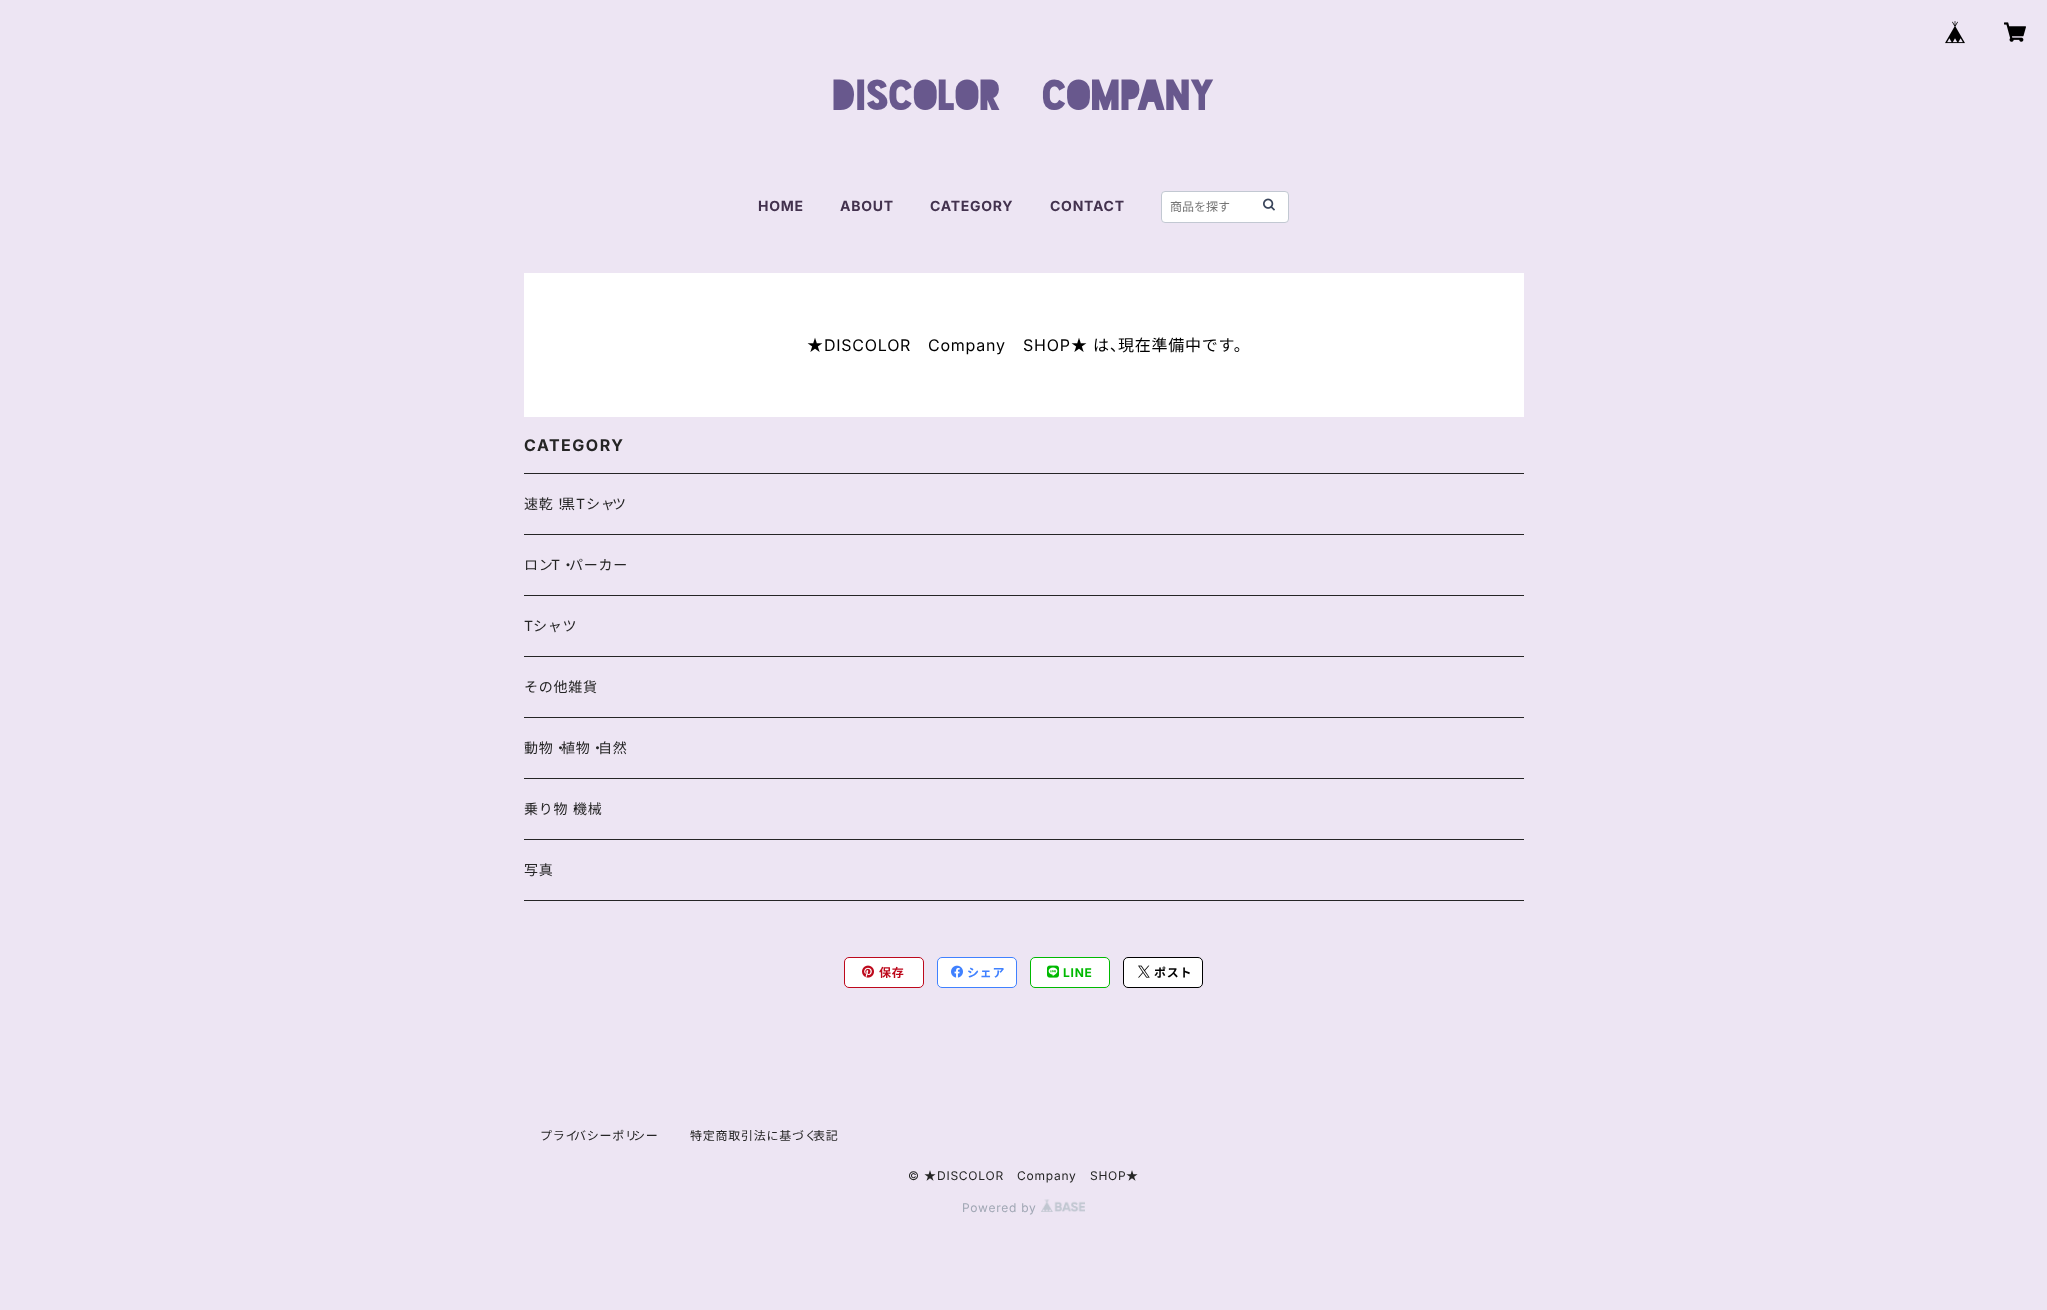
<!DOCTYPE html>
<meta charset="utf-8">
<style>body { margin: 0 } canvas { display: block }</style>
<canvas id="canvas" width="2047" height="1310"></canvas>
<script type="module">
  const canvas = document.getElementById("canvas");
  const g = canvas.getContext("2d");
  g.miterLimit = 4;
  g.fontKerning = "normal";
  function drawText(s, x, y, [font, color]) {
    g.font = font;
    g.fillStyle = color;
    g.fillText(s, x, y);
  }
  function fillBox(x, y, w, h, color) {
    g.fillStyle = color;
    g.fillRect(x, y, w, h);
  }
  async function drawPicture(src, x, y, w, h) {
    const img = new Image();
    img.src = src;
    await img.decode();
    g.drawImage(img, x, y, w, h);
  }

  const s1 = ["bold 14px Inter", "#43324E"];
  const s2 = ["12px Noto Sans JP", "#757575"];
  const s3 = ["16px Noto Sans JP", "#000000"];
  const s4 = ["16px Inter", "#000000"];
  const s5 = ["bold 16px Inter", "#252525"];
  const s6 = ["14px Noto Sans JP", "#252525"];
  const s7 = ["14px Inter", "#252525"];
  const s8 = ["bold 12px Noto Sans JP", "#BD091C"];
  const s9 = ["bold 12px Noto Sans JP", "#4081FF"];
  const s10 = ["bold 12px Inter", "#00B901"];
  const s11 = ["bold 12px Noto Sans JP", "#000000"];
  const s12 = ["12px Noto Sans JP", "#252525"];
  const s13 = ["12px Inter", "#252525"];
  const s14 = ["12px Inter", "#A0A7B4"];

  fillBox(0, 0, 2047, 1310, "#EDE5F3");
  await drawPicture("pic1.png", 1945, 21, 20, 23);
  await drawPicture("pic2.png", 2004, 22, 22, 20);
  await drawPicture("pic3.png", 833, 79, 381, 31);
  g.letterSpacing = "0.75px";
  drawText("HOME", 758, 211, s1);
  drawText("ABOUT", 840, 211, s1);
  drawText("CATEGORY", 930, 211, s1);
  drawText("CONTACT", 1050, 211, s1);
  g.fillStyle = "#FFFFFF";
  g.beginPath();
  g.roundRect(1161.5, 191.5, 127, 31, 3.5);
  g.fill();
  g.strokeStyle = "#C2C8D2";
  g.stroke();
  g.letterSpacing = "0px";
  drawText("商品を探す", 1170, 211, s2);
  await drawPicture("pic4.png", 1263, 198, 12, 13);
  fillBox(524, 273, 1000, 144, "#FFFFFF");
  g.letterSpacing = "0.75px";
  drawText("★", 807, 351, s3);
  drawText("DISCOLOR", 824, 351, s4);
  drawText("Company", 928, 351, s4);
  drawText("SHOP", 1023, 351, s4);
  g.wordSpacing = "1px";
  drawText("★ は、", 1071, 351, s3);
  drawText("現在準備中です。", 1118, 351, s3);
  g.letterSpacing = "1.5px";
  g.wordSpacing = "0px";
  drawText("CATEGORY", 524, 451, s5);
  fillBox(524, 473, 1000, 1, "#252525");
  fillBox(524, 900, 1000, 1, "#252525");
  g.letterSpacing = "0.75px";
  drawText("速乾！", 524, 509, s6);
  drawText("黒", 561, 509, s6);
  drawText("T", 576, 509, s7);
  drawText("シャ", 586, 509, s6);
  drawText("ツ", 612, 509, s6);
  fillBox(524, 534, 1000, 1, "#252525");
  drawText("ロン", 524, 570, s6);
  drawText("T", 551, 570, s7);
  drawText("・", 561, 570, s6);
  drawText("パーカー", 569, 570, s6);
  fillBox(524, 595, 1000, 1, "#252525");
  drawText("T", 524, 631, s7);
  drawText("シャツ", 533, 631, s6);
  fillBox(524, 656, 1000, 1, "#252525");
  drawText("その他雑貨", 524, 692, s6);
  fillBox(524, 717, 1000, 1, "#252525");
  drawText("動物・", 524, 753, s6);
  drawText("植物・", 561, 753, s6);
  drawText("自然", 598, 753, s6);
  fillBox(524, 778, 1000, 1, "#252525");
  drawText("乗り物・", 524, 814, s6);
  drawText("機械", 573, 814, s6);
  fillBox(524, 839, 1000, 1, "#252525");
  drawText("写真", 524, 875, s6);
  g.fillStyle = "#FFFFFF";
  g.beginPath();
  g.roundRect(844.5, 957.5, 79, 30, 4.5);
  g.fill();
  g.strokeStyle = "#BD091C";
  g.stroke();
  await drawPicture("pic5.png", 862, 965, 12, 13);
  drawText("保存", 879, 977, s8);
  g.fillStyle = "#FFFFFF";
  g.beginPath();
  g.roundRect(937.5, 957.5, 79, 30, 4.5);
  g.fill();
  g.strokeStyle = "#4081FF";
  g.stroke();
  await drawPicture("pic6.png", 951, 965, 12, 13);
  drawText("シェア", 967, 977, s9);
  g.fillStyle = "#FFFFFF";
  g.beginPath();
  g.roundRect(1030.5, 957.5, 79, 30, 4.5);
  g.fill();
  g.strokeStyle = "#00B901";
  g.stroke();
  await drawPicture("pic7.png", 1047, 965, 12, 13);
  drawText("LINE", 1063, 977, s10);
  g.fillStyle = "#FFFFFF";
  g.beginPath();
  g.roundRect(1123.5, 957.5, 79, 30, 4.5);
  g.fill();
  g.strokeStyle = "#000000";
  g.stroke();
  await drawPicture("pic8.png", 1138, 965, 12, 13);
  drawText("ポスト", 1154, 977, s11);
  drawText("プライ", 540, 1140, s12);
  drawText("バシーポリ", 574, 1140, s12);
  drawText("シー", 633, 1140, s12);
  drawText("特定商取引法に基づく", 690, 1140, s12);
  drawText("表記", 813, 1140, s12);
  drawText("©", 908, 1180, s13);
  drawText("★", 924, 1180, s12);
  drawText("DISCOLOR", 937, 1180, s13);
  drawText("Company", 1017, 1180, s13);
  drawText("SHOP", 1090, 1180, s13);
  drawText("★", 1126, 1180, s12);
  drawText("Powered by", 962, 1212, s14);
  await drawPicture("pic9.png", 1041, 1199, 44, 13);
</script>
